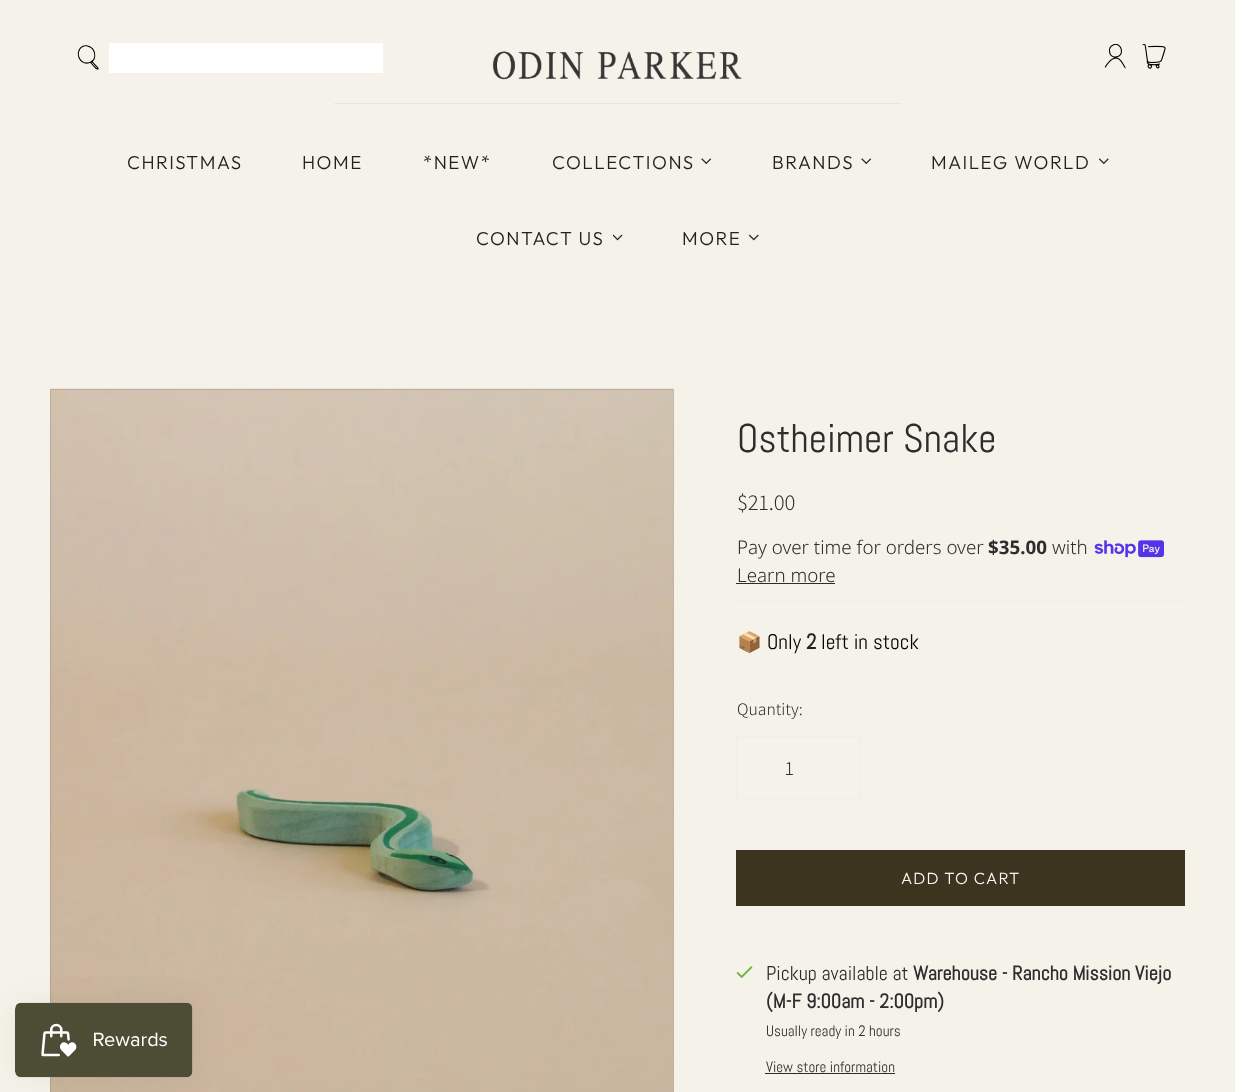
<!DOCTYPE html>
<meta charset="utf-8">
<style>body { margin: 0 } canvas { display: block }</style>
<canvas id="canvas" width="1235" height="1092"></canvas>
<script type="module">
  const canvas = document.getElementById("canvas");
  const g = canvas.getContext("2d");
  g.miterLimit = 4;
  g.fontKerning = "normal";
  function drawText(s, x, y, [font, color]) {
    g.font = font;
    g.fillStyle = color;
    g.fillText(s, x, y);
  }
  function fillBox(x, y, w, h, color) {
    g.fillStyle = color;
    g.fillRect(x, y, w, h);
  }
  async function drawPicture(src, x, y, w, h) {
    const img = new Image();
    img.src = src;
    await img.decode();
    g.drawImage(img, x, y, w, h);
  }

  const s1 = ["300 18.75px Outfit", "#212121"];
  const s2 = ["40px Abel", "#2E2C2C"];
  const s3 = ["300 22.5px Assistant", "#2E2C2C"];
  const s4 = ["300 18.75px Noto Sans", "#2E2C2C"];
  const s5 = ["bold 18.75px Noto Sans", "#2E2C2C"];
  const s6 = ["20px Noto Color Emoji", "#2E2C2C"];
  const s7 = ["21.25px Abel", "#000000"];
  const s8 = ["bold 21.25px Abel", "#212121"];
  const s9 = ["300 17.5px Assistant", "#2E2C2C"];
  const s10 = ["300 20px Assistant", "#2E2C2C"];
  const s11 = ["300 16.25px Outfit", "#F7F6F5"];
  const s12 = ["20px Abel", "#2E2C2C"];
  const s13 = ["bold 20px Abel", "#2E2C2C"];
  const s14 = ["15px Abel", "#2E2C2C"];

  fillBox(0, 0, 1235, 1092, "#F5F2EA");
  await drawPicture("pic1.png", 77, 45, 22, 25);
  fillBox(109, 43, 274, 30, "#FFFFFF");
  await drawPicture("pic2.png", 1104, 44, 22, 25);
  await drawPicture("pic3.png", 1142, 44, 24, 25);
  await drawPicture("pic4.png", 492, 51, 250, 29);
  fillBox(334, 103, 567, 1, "#EDE5D7");
  g.letterSpacing = "1.5px";
  drawText("CHRISTMAS", 127, 169, s1);
  drawText("HOME", 302, 169, s1);
  drawText("*NEW*", 423, 169, s1);
  drawText("COLLECTIONS", 552, 169, s1);
  await drawPicture("pic5.png", 701, 158, 10, 7);
  drawText("BRANDS", 772, 169, s1);
  await drawPicture("pic5.png", 861, 158, 10, 7);
  drawText("MAILEG WORLD", 931, 169, s1);
  await drawPicture("pic6.png", 1099, 158, 10, 7);
  drawText("CONTACT US", 476, 245, s1);
  await drawPicture("pic7.png", 613, 234, 10, 7);
  drawText("MORE", 682, 245, s1);
  await drawPicture("pic8.png", 749, 234, 10, 7);
  await drawPicture("pic10.png", 50, 388, 624, 704);
  g.strokeStyle = "rgba(0, 0, 0, 0.1)";
  g.strokeRect(50.5, 389.5, 623, 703);
  g.fillStyle = "rgba(0, 0, 0, 0.05)";
  g.filter = "blur(15.5px)";
  g.beginPath();
  g.roundRect(15, 1003, 178, 75, 6);
  g.fill();
  g.filter = "none";
  await drawPicture("pic9.png", 15, 1002, 178, 76);
  g.letterSpacing = "0px";
  drawText("Ostheimer Snake", 737, 452, s2);
  fillBox(736, 601, 449, 1, "#EEEEEE");
  drawText("$21.00", 737, 510, s3);
  drawText("Pay over time for orders over", 737, 554, s4);
  drawText("$35.00", 988, 554, s5);
  drawText("with", 1052, 554, s4);
  await drawPicture("pic11.png", 1094, 540, 70, 18);
  drawText("Learn more", 737, 582, s4);
  fillBox(736, 583, 99, 1, "#2E2C2C");
  drawText("📦", 737, 649, s6);
  drawText("Only", 767, 649, s7);
  drawText("2", 806, 649, s8);
  drawText("left in stock", 821, 649, s7);
  drawText("Quantity:", 737, 715, s9);
  g.strokeStyle = "#EEEEEE";
  g.strokeRect(736.5, 736.5, 124, 62);
  drawText("1", 785, 775, s10);
  fillBox(736, 850, 449, 56, "#3D341F");
  g.letterSpacing = "1.25px";
  drawText("ADD TO CART", 901, 884, s11);
  await drawPicture("pic12.png", 736, 966, 17, 13);
  g.letterSpacing = "0px";
  drawText("Pickup available at", 766, 980, s12);
  drawText("Warehouse - Rancho Mission Viejo", 913, 980, s13);
  drawText("(M-F 9:00am - 2:00pm)", 766, 1008, s13);
  drawText("Usually ready in 2 hours", 766, 1036, s14);
  drawText("View store information", 766, 1072, s14);
  fillBox(765, 1073, 130, 1, "#2E2C2C");
</script>
